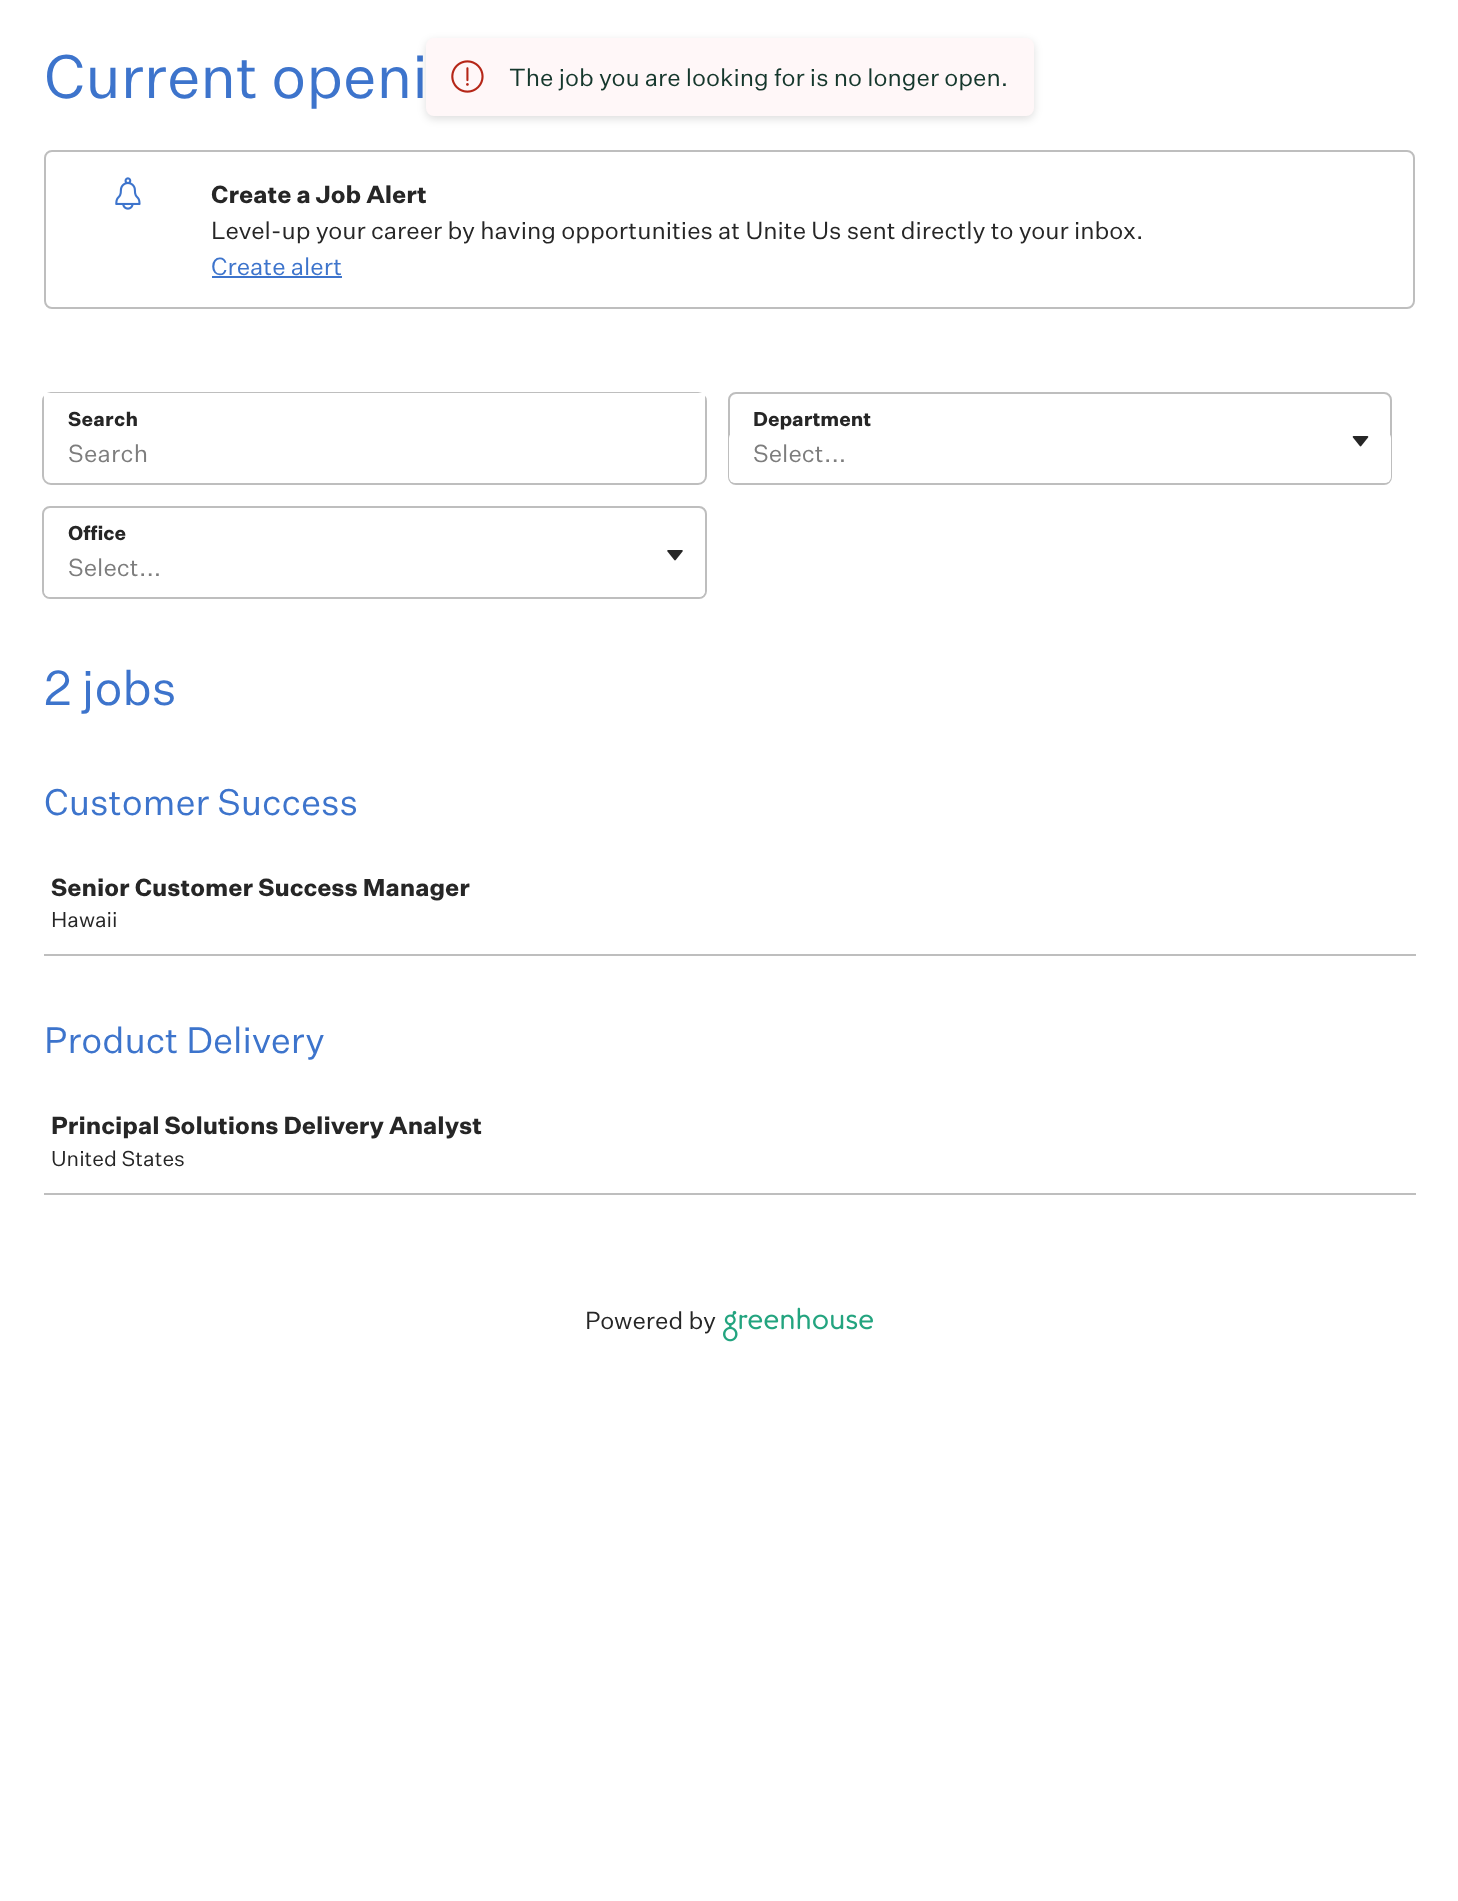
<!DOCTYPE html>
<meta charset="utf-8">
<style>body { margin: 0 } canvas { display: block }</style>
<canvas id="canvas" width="1458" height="1901"></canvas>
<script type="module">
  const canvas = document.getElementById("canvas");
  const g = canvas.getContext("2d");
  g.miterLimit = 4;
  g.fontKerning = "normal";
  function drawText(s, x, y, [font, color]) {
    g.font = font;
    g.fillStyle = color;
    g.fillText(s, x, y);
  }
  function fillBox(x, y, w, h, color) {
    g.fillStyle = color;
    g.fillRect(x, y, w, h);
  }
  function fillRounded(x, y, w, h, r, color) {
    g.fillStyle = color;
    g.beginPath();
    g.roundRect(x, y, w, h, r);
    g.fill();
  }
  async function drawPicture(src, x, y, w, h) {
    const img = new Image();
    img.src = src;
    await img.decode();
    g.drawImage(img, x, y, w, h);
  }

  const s1 = ["60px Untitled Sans", "#3D74CC"];
  const s2 = ["bold 24px Untitled Sans", "#262626"];
  const s3 = ["24px Untitled Sans", "#262626"];
  const s4 = ["24px Untitled Sans", "#3D74CC"];
  const s5 = ["bold 19.5px Untitled Sans", "#262626"];
  const s6 = ["24px Untitled Sans", "#7D7D7D"];
  const s7 = ["48px Untitled Sans", "#3D74CC"];
  const s8 = ["36px Untitled Sans", "#3D74CC"];
  const s9 = ["21px Untitled Sans", "#262626"];
  const s10 = ["24px Untitled Sans", "#15372C"];

  fillBox(0, 0, 1458, 1901, "#FFFFFF");
  drawText("Current openi", 44, 98, s1);
  g.beginPath();
  g.roundRect(45, 151, 1369, 157, 7);
  g.strokeStyle = "#BEBEBE";
  g.lineWidth = 2;
  g.stroke();
  await drawPicture("pic1.png", 115, 177, 26, 33);
  drawText("Create a Job Alert", 211, 203, s2);
  drawText("Level-up your career by having opportunities at Unite Us sent directly to your inbox.", 211, 239, s3);
  drawText("Create alert", 211, 275, s4);
  fillBox(212, 276, 130, 2, "#3D74CC");
  g.beginPath();
  g.roundRect(43, 393, 663, 91, 8);
  g.stroke();
  fillBox(44, 393, 661, 8, "#FFFFFF");
  g.letterSpacing = "0.25px";
  drawText("Search", 68, 426, s5);
  drawText("Search", 68, 462, s6);
  g.beginPath();
  g.roundRect(729, 393, 662, 91, 7);
  g.stroke();
  g.letterSpacing = "0px";
  drawText("Department", 753, 426, s5);
  fillRounded(729, 432, 662, 51, 6, "#FFFFFF");
  await drawPicture("pic2.png", 1352, 436, 17, 11);
  drawText("Select...", 753, 462, s6);
  g.beginPath();
  g.roundRect(43, 507, 663, 91, 7);
  g.stroke();
  drawText("Office", 68, 540, s5);
  fillRounded(44, 546, 661, 51, 6, "#FFFFFF");
  await drawPicture("pic3.png", 667, 550, 16, 11);
  drawText("Select...", 68, 576, s6);
  drawText("2 jobs", 44, 705, s7);
  drawText("Customer Success", 44, 815, s8);
  fillBox(44, 954, 1372, 2, "#BEBEBE");
  drawText("Senior Customer Success Manager", 51, 896, s2);
  drawText("Hawaii", 51, 927, s9);
  drawText("Product Delivery", 44, 1053, s8);
  fillBox(44, 1193, 1372, 2, "#BEBEBE");
  drawText("Principal Solutions Delivery Analyst", 51, 1134, s2);
  drawText("United States", 51, 1166, s9);
  g.fillStyle = "rgba(0, 0, 0, 0.13)";
  g.filter = "blur(4.5px)";
  g.beginPath();
  g.roundRect(426, 41, 608, 78, 8);
  g.fill();
  g.filter = "none";
  fillRounded(426, 38, 608, 78, 8, "#FFF7F8");
  await drawPicture("pic4.png", 451, 60, 33, 33);
  drawText("The job you are looking for is no longer open.", 509, 86, s10);
  drawText("Powered by", 585, 1329, s3);
  await drawPicture("pic5.png", 723, 1307, 150, 35);
</script>
